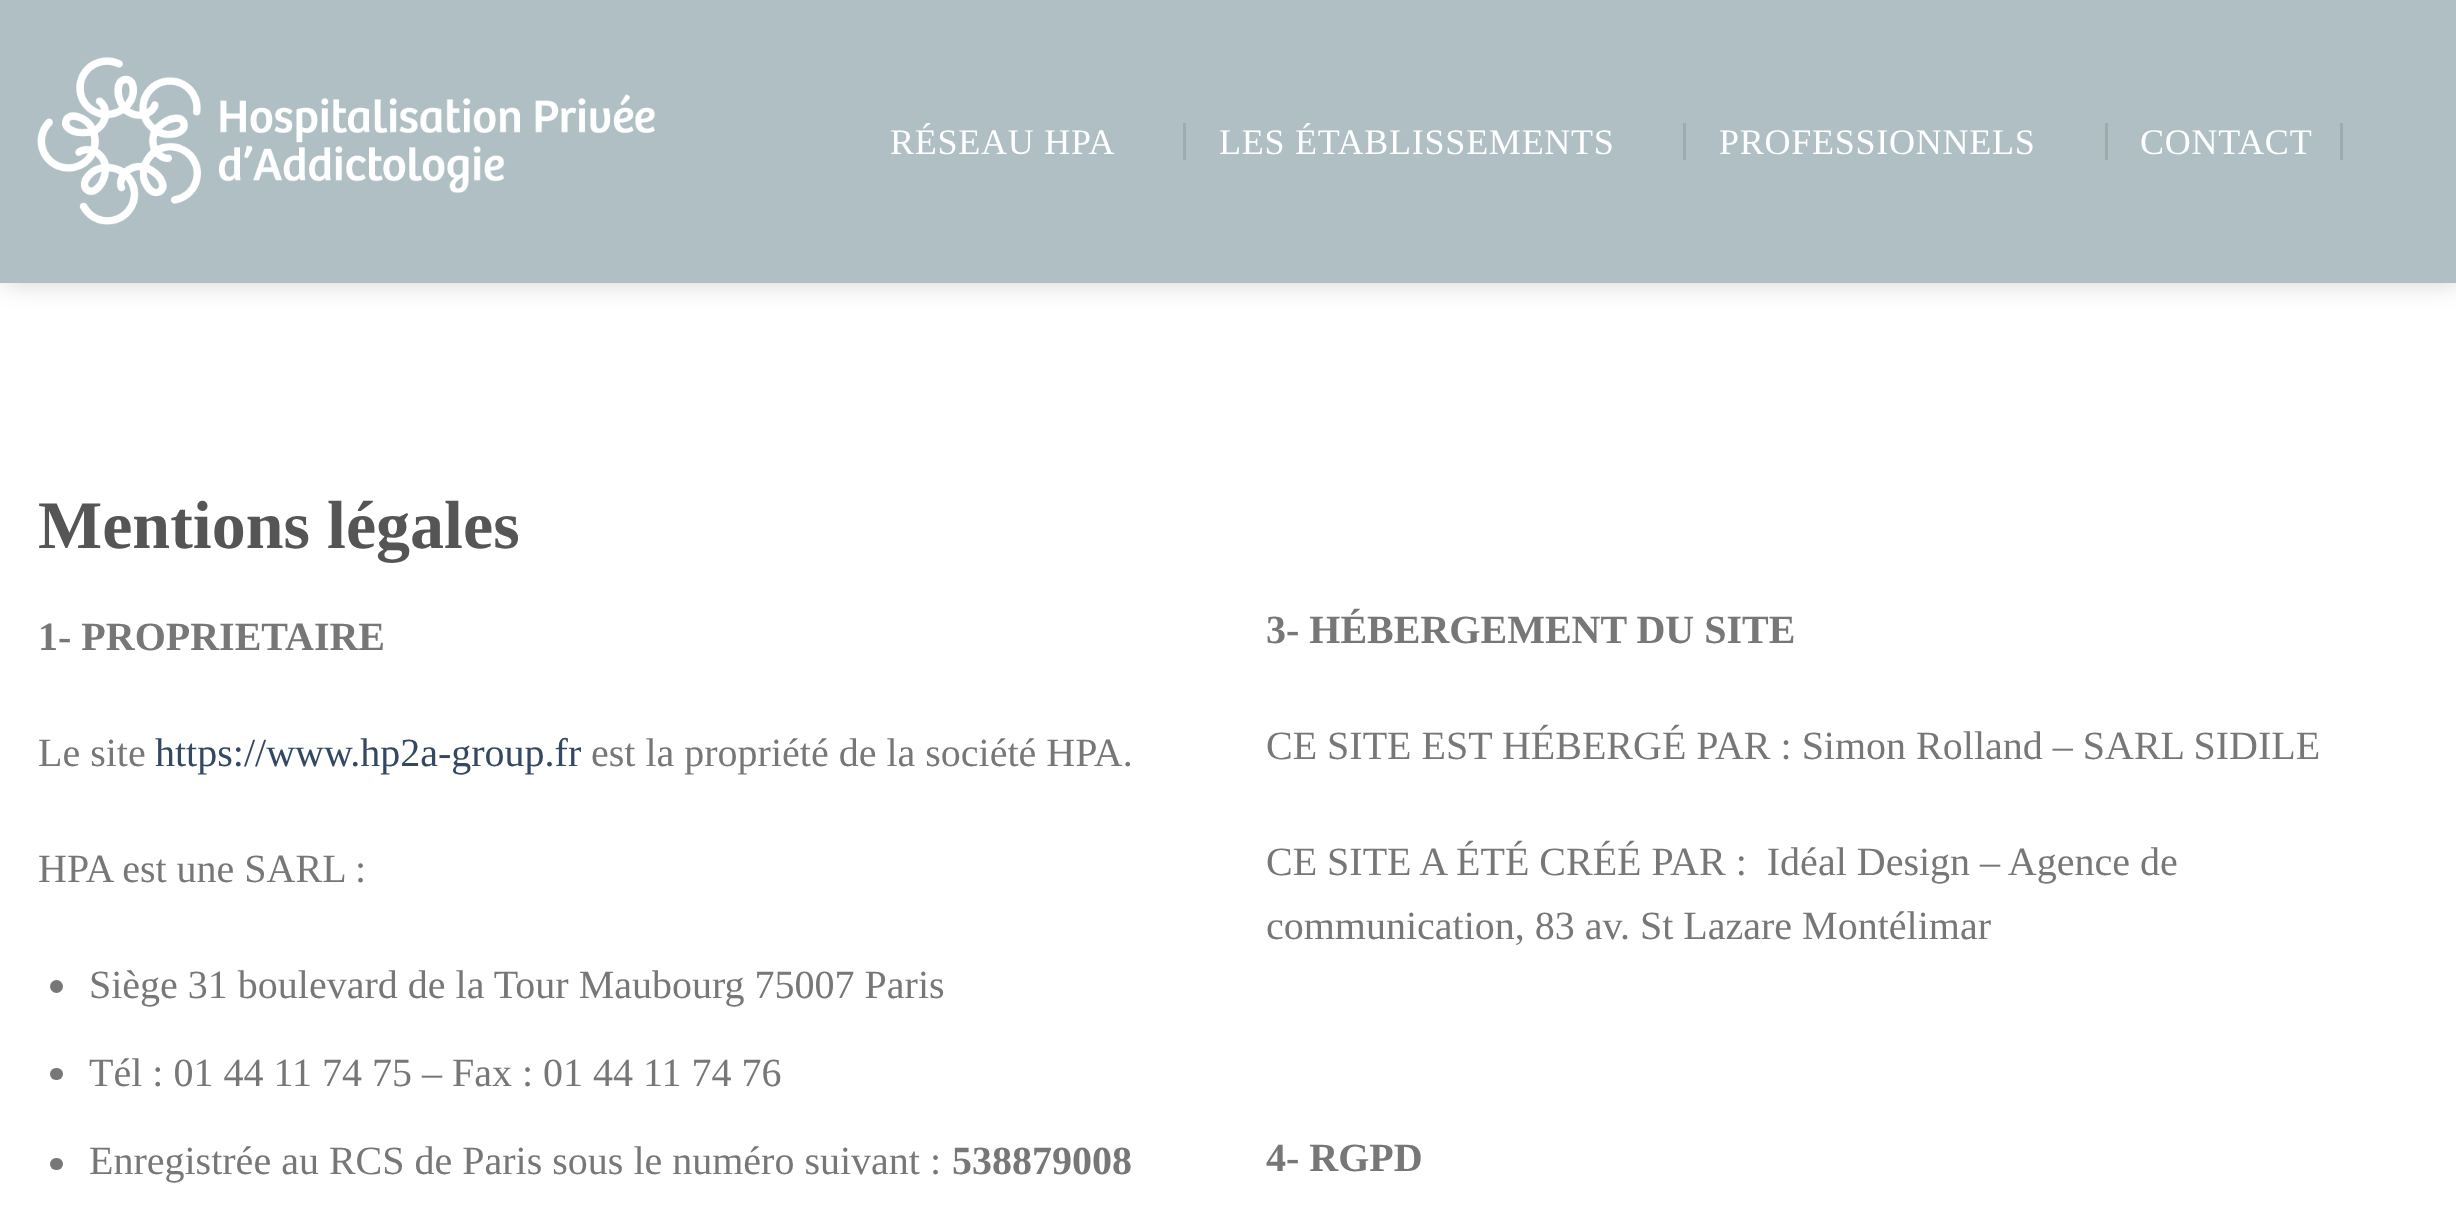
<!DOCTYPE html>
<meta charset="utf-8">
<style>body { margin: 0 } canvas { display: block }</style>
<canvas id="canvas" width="2456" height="1230"></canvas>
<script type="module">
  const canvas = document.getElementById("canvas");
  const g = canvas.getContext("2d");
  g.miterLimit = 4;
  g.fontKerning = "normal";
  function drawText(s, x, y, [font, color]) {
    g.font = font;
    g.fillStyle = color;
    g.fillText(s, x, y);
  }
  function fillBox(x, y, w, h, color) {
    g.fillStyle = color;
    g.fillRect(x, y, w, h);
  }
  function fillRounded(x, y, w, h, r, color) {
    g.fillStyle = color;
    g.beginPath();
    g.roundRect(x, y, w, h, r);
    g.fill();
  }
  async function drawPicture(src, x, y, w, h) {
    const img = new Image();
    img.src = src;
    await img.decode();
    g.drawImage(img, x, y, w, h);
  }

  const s1 = ["36px Liberation Serif", "#FFFFFF"];
  const s2 = ["bold 68px Liberation Serif", "#555555"];
  const s3 = ["bold 40px Liberation Serif", "#777777"];
  const s4 = ["40px Liberation Serif", "#777777"];
  const s5 = ["40px Liberation Serif", "#334862"];

  fillBox(0, 0, 2456, 1230, "#FFFFFF");
  g.fillStyle = "rgba(0, 0, 0, 0.15)";
  g.filter = "blur(12.5px)";
  g.beginPath();
  g.rect(3, 3, 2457, 282);
  g.fill();
  g.filter = "none";
  fillBox(0, 0, 2456, 283, "#AFBFC4");
  await drawPicture("pic1.png", 37, 57, 618, 168);
  g.letterSpacing = "0.75px";
  drawText("RÉSEAU HPA", 890, 154, s1);
  fillBox(1183, 123, 3, 37, "#9EACB0");
  drawText("LES ÉTABLISSEMENTS", 1219, 154, s1);
  fillBox(1683, 123, 3, 37, "#9EACB0");
  drawText("PROFESSIONNELS", 1719, 154, s1);
  fillBox(2105, 123, 3, 37, "#9EACB0");
  drawText("CONTACT", 2140, 154, s1);
  fillBox(2340, 123, 3, 37, "#9EACB0");
  g.letterSpacing = "0px";
  drawText("Mentions légales", 38, 548, s2);
  drawText("1- PROPRIETAIRE", 38, 650, s3);
  drawText("Le site", 38, 766, s4);
  drawText("https://www.hp2a-group.fr", 155, 766, s5);
  drawText("est la propriété de la société HPA.", 591, 766, s4);
  drawText("HPA est une SARL :", 38, 882, s4);
  g.beginPath();
  g.arc(56.5, 986.5, 6.5, 0, Math.PI * 2);
  g.fill();
  drawText("Siège 31 boulevard de la Tour Maubourg 75007 Paris", 89, 998, s4);
  fillRounded(50, 1068, 13, 12, 6, "#777777");
  drawText("Tél : 01 44 11 74 75 – Fax : 01 44 11 74 76", 89, 1086, s4);
  fillRounded(50, 1158, 13, 12, 6, "#777777");
  drawText("Enregistrée au RCS de Paris sous le numéro suivant :", 89, 1174, s4);
  drawText("538879008", 952, 1174, s3);
  drawText("3- HÉBERGEMENT DU SITE", 1266, 643, s3);
  drawText("CE SITE EST HÉBERGÉ PAR : Simon Rolland – SARL SIDILE", 1266, 759, s4);
  drawText("CE SITE A ÉTÉ CRÉÉ PAR :  Idéal Design – Agence de", 1266, 875, s4);
  drawText("communication, 83 av. St Lazare Montélimar", 1266, 939, s4);
  drawText("4- RGPD", 1266, 1171, s3);
</script>
